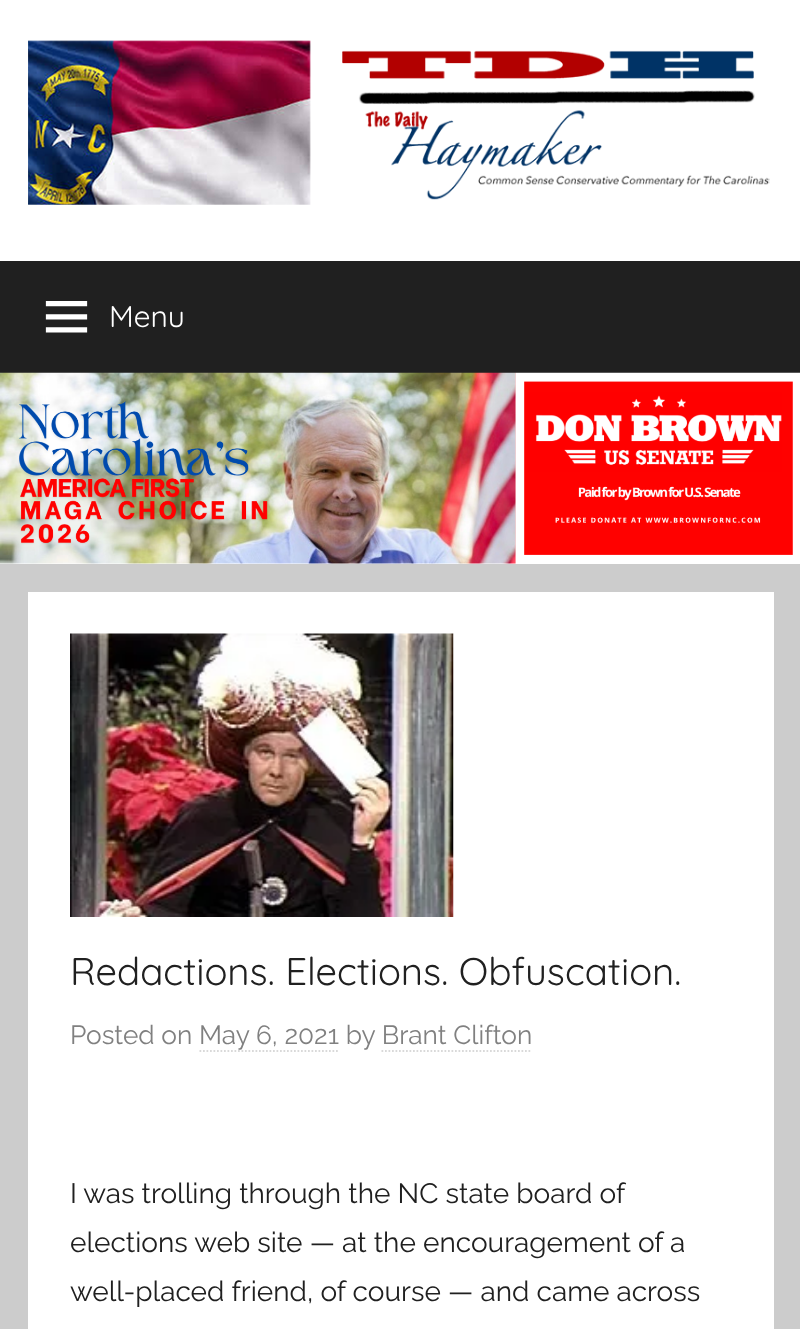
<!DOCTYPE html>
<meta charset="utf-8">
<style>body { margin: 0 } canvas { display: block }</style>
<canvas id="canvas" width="800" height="1329"></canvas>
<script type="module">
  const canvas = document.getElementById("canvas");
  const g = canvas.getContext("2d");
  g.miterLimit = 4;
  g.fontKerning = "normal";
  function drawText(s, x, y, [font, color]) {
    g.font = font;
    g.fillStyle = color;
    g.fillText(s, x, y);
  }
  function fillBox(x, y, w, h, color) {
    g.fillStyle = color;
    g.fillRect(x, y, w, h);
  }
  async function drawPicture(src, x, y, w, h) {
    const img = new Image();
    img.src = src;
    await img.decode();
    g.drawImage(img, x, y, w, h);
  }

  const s1 = ["300 30px Quicksand", "#FFFFFF"];
  const s2 = ["300 38.5px Quicksand", "#202020"];
  const s3 = ["100 26.25px Raleway", "#808080"];
  const s4 = ["100 28px Raleway", "#202020"];

  fillBox(0, 0, 800, 1329, "#CCCCCC");
  fillBox(0, 0, 800, 564, "#FFFFFF");
  await drawPicture("pic1.png", 28, 40, 742, 165);
  fillBox(0, 261, 800, 112, "#202020");
  await drawPicture("pic2.png", 45, 301, 43, 32);
  drawText("Menu", 109, 327, s1);
  await drawPicture("pic3.png", 0, 372, 800, 192);
  fillBox(28, 592, 746, 737, "#FFFFFF");
  await drawPicture("pic4.png", 70, 633, 384, 284);
  drawText("Redactions. Elections. Obfuscation.", 70, 985, s2);
  drawText("Posted on May 6, 2021 by Brant Clifton", 70, 1044, s3);
  g.beginPath();
  g.moveTo(199.5, 1051);
  g.lineTo(339.5, 1051);
  g.strokeStyle = "#D9D9D9";
  g.lineWidth = 1.8;
  g.setLineDash([1.75, 1.75]);
  g.stroke();
  g.beginPath();
  g.moveTo(381.5, 1051);
  g.lineTo(532, 1051);
  g.stroke();
  drawText("I was trolling through the NC state board of", 70, 1203, s4);
  drawText("elections web site — at the encouragement of a", 70, 1252, s4);
  drawText("well-placed friend, of course — and came across", 70, 1301, s4);
</script>
